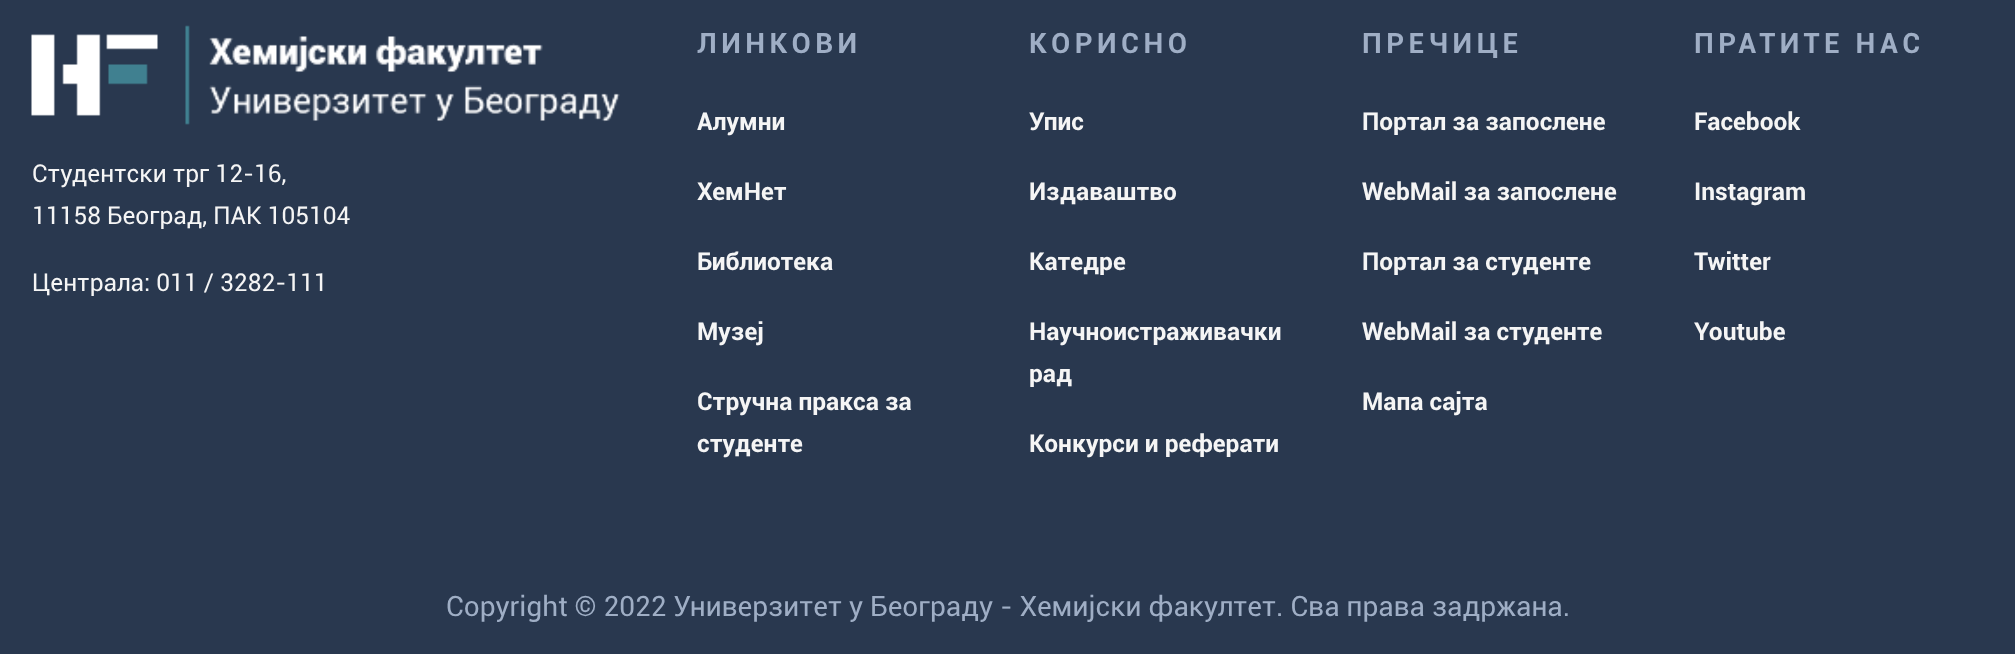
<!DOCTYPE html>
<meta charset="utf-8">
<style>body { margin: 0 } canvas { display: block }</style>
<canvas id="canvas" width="2015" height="654"></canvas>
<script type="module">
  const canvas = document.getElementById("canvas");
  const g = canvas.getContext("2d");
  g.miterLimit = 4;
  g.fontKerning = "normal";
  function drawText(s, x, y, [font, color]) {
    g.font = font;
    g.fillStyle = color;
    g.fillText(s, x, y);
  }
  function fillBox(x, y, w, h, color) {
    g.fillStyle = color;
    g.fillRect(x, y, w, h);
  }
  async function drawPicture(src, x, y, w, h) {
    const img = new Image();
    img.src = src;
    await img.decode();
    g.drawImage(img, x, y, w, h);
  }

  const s1 = ["24.5px Roboto", "#F5F5F5"];
  const s2 = ["bold 28px Roboto", "#9FAEC5"];
  const s3 = ["bold 24.5px Roboto", "#F5F5F5"];
  const s4 = ["28px Roboto", "#9FAEC5"];

  fillBox(0, 0, 2015, 654, "#29384F");
  await drawPicture("pic1.png", 31, 25, 589, 100);
  drawText("Студентски трг 12-16,", 32, 182, s1);
  drawText("11158 Београд, ПАК 105104", 32, 224, s1);
  drawText("Централа: 011 / 3282-111", 32, 291, s1);
  g.letterSpacing = "4.5px";
  drawText("ЛИНКОВИ", 697, 53, s2);
  g.letterSpacing = "0px";
  drawText("Алумни", 697, 130, s3);
  drawText("ХемНет", 697, 200, s3);
  drawText("Библиотека", 697, 270, s3);
  drawText("Музеј", 697, 340, s3);
  drawText("Стручна пракса за", 697, 410, s3);
  drawText("студенте", 697, 452, s3);
  g.letterSpacing = "4.5px";
  drawText("КОРИСНО", 1029, 53, s2);
  g.letterSpacing = "0px";
  drawText("Упис", 1029, 130, s3);
  drawText("Издаваштво", 1029, 200, s3);
  drawText("Катедре", 1029, 270, s3);
  drawText("Научноистраживачки", 1029, 340, s3);
  drawText("рад", 1029, 382, s3);
  drawText("Конкурси и реферати", 1029, 452, s3);
  g.letterSpacing = "4.5px";
  drawText("ПРЕЧИЦЕ", 1362, 53, s2);
  g.letterSpacing = "0px";
  drawText("Портал за запослене", 1362, 130, s3);
  drawText("WebMail за запослене", 1362, 200, s3);
  drawText("Портал за студенте", 1362, 270, s3);
  drawText("WebMail за студенте", 1362, 340, s3);
  drawText("Мапа сајта", 1362, 410, s3);
  g.letterSpacing = "4.5px";
  drawText("ПРАТИТЕ НАС", 1694, 53, s2);
  g.letterSpacing = "0px";
  drawText("Facebook", 1694, 130, s3);
  drawText("Instagram", 1694, 200, s3);
  drawText("Twitter", 1694, 270, s3);
  drawText("Youtube", 1694, 340, s3);
  drawText("Copyright © 2022 Универзитет у Београду - Хемијски факултет. Сва права задржана.", 446, 616, s4);
</script>
